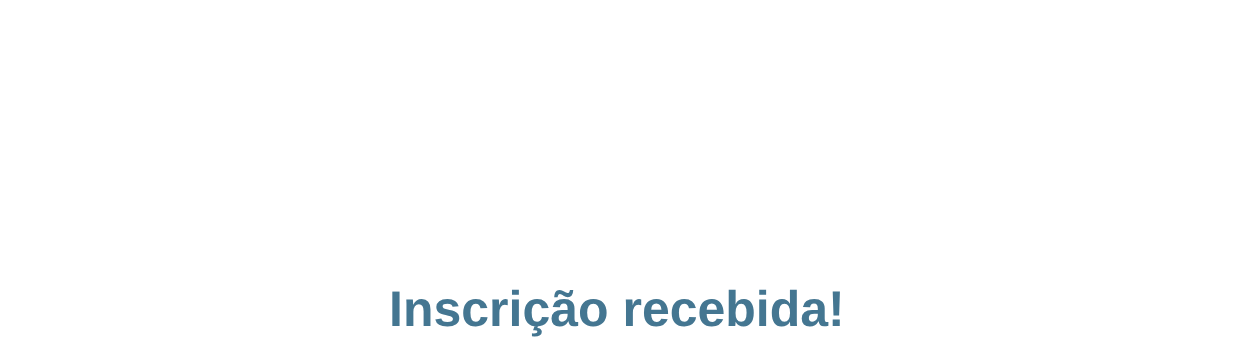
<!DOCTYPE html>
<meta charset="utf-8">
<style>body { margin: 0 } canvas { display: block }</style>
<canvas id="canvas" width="1233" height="360"></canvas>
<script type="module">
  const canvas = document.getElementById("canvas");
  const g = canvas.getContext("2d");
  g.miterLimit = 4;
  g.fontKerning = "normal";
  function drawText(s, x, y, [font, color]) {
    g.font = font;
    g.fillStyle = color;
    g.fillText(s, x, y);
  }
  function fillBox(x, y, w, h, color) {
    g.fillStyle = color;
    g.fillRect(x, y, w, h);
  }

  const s1 = ["bold 50px Liberation Sans", "#447691"];

  fillBox(0, 0, 1233, 360, "#FFFFFF");
  drawText("Inscrição recebida!", 389, 326, s1);
</script>
